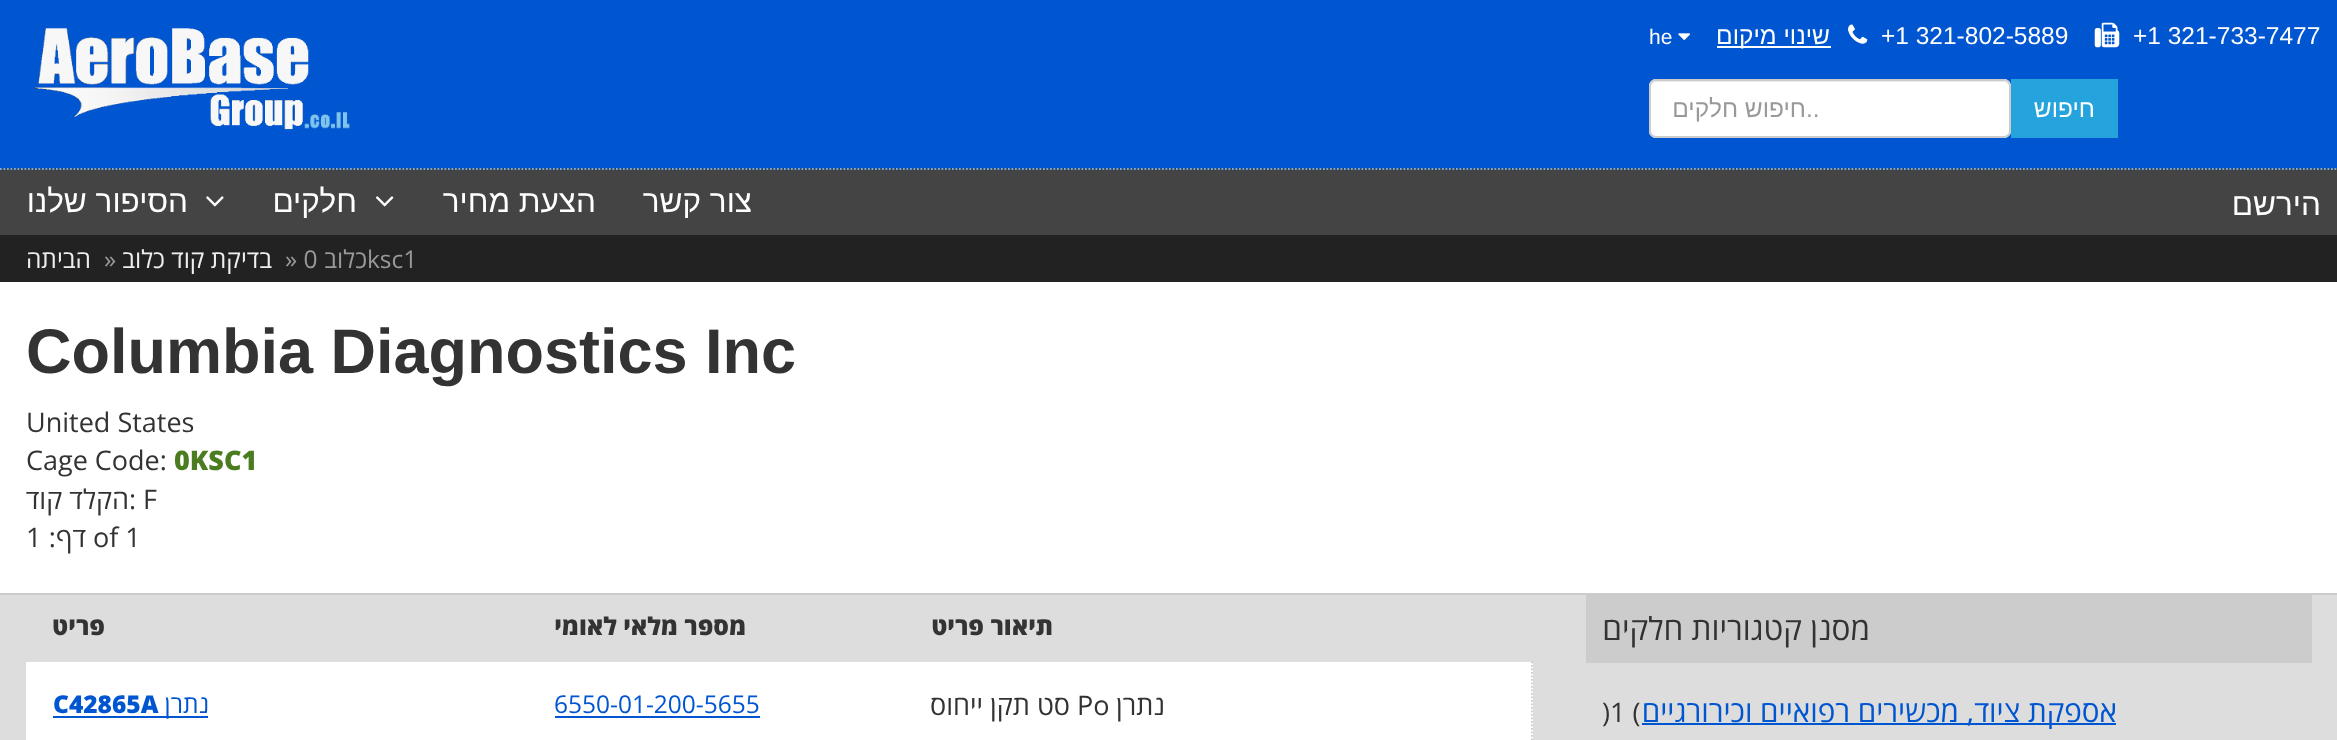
<!DOCTYPE html>
<meta charset="utf-8">
<style>body { margin: 0 } canvas { display: block }</style>
<canvas id="canvas" width="2337" height="740"></canvas>
<script type="module">
  const canvas = document.getElementById("canvas");
  const g = canvas.getContext("2d");
  g.miterLimit = 4;
  g.fontKerning = "normal";
  function drawText(s, x, y, [font, color]) {
    g.font = font;
    g.fillStyle = color;
    g.fillText(s, x, y);
  }
  function fillBox(x, y, w, h, color) {
    g.fillStyle = color;
    g.fillRect(x, y, w, h);
  }
  function fillRounded(x, y, w, h, r, color) {
    g.fillStyle = color;
    g.beginPath();
    g.roundRect(x, y, w, h, r);
    g.fill();
  }
  async function drawPicture(src, x, y, w, h) {
    const img = new Image();
    img.src = src;
    await img.decode();
    g.drawImage(img, x, y, w, h);
  }

  const s1 = ["24.5px Liberation Sans", "#FFFFFF"];
  const s2 = ["21px Liberation Sans", "#FFFFFF"];
  const s3 = ["24.5px Liberation Sans", "#999999"];
  const s4 = ["31.5px Liberation Sans", "#FFFFFF"];
  const s5 = ["24.5px Open Sans", "#999999"];
  const s6 = ["24.5px Open Sans", "#EEEEEE"];
  const s7 = ["bold 63px Liberation Sans", "#333333"];
  const s8 = ["27px Open Sans", "#333333"];
  const s9 = ["800 27px Open Sans", "#4B7D20"];
  const s10 = ["31.5px Open Sans", "#333333"];
  const s11 = ["29.6px Open Sans", "#0055D0"];
  const s12 = ["800 24.5px Open Sans", "#333333"];
  const s13 = ["24.5px Open Sans", "#0055D0"];
  const s14 = ["800 24.5px Open Sans", "#0055D0"];

  fillBox(0, 0, 2337, 740, "#DDDDDD");
  fillBox(0, 0, 2337, 168, "#0055D0");
  drawText("+1 321-733-7477", 2133, 44, s1);
  await drawPicture("pic1.png", 2094, 22, 26, 26);
  drawText("+1 321-802-5889", 1881, 44, s1);
  await drawPicture("pic2.png", 1848, 24, 20, 20);
  fillBox(1717, 46, 114, 2, "#FFFFFF");
  g.direction = "rtl";
  drawText("שינוי מיקום", 1830, 44, s1);
  await drawPicture("pic3.png", 1678, 33, 13, 7);
  g.direction = "ltr";
  drawText("he", 1649, 44, s2);
  fillBox(2011, 79, 107, 59, "#24A3DD");
  g.direction = "rtl";
  drawText("חיפוש", 2095, 117, s1);
  fillRounded(1649, 79, 362, 59, 7, "#FFFFFF");
  g.fillStyle = "#ECECEC";
  g.beginPath();
  g.moveTo(1656, 82);
  g.lineTo(2004, 82);
  g.bezierCurveTo(2007, 82, 2009, 85, 2009, 88);
  g.bezierCurveTo(2009, 85, 2008, 81, 2004, 81);
  g.lineTo(1655, 81);
  g.bezierCurveTo(1651, 81, 1650, 85, 1650, 88);
  g.bezierCurveTo(1650, 85, 1653, 82, 1656, 82);
  g.closePath();
  g.fill();
  g.beginPath();
  g.roundRect(1650, 80, 360, 57, 6);
  g.strokeStyle = "#CCCCCC";
  g.lineWidth = 2;
  g.stroke();
  g.direction = "ltr";
  drawText("..", 1806, 117, s3);
  g.direction = "rtl";
  drawText("חיפוש חלקים", 1806, 117, s3);
  await drawPicture("pic4.png", 35, 28, 315, 102);
  fillBox(0, 168, 2337, 67, "#444444");
  g.beginPath();
  g.moveTo(0, 169);
  g.lineTo(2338, 169);
  g.strokeStyle = "#69ACEF";
  g.lineWidth = 1.8;
  g.setLineDash([1.75, 1.75]);
  g.stroke();
  drawText("הירשם", 2321, 215, s4);
  drawText("צור קשר", 752, 212, s4);
  drawText("הצעת מחיר", 596, 212, s4);
  await drawPicture("pic5.png", 375, 196, 19, 11);
  drawText("חלקים", 357, 212, s4);
  await drawPicture("pic6.png", 206, 196, 18, 11);
  drawText("הסיפור שלנו", 188, 212, s4);
  fillBox(0, 235, 2337, 47, "#222222");
  g.direction = "ltr";
  drawText("ksc1", 367, 268, s5);
  g.direction = "rtl";
  drawText("כלוב", 367, 268, s5);
  g.direction = "ltr";
  drawText("» 0", 285, 268, s5);
  g.direction = "rtl";
  drawText("בדיקת קוד כלוב", 272, 268, s6);
  g.direction = "ltr";
  drawText("»", 104, 268, s5);
  g.direction = "rtl";
  drawText("הביתה", 91, 268, s6);
  fillBox(0, 282, 2337, 311, "#FFFFFF");
  fillBox(0, 593, 2337, 2, "#CCCCCC");
  g.direction = "ltr";
  drawText("Columbia Diagnostics Inc", 26, 373, s7);
  drawText("United States", 26, 432, s8);
  drawText("0KSC1", 174, 470, s9);
  drawText("Cage Code:", 26, 470, s8);
  drawText(": F", 129, 509, s8);
  g.direction = "rtl";
  drawText("הקלד קוד", 129, 509, s8);
  g.direction = "ltr";
  drawText("of 1", 93, 547, s8);
  g.direction = "rtl";
  drawText("דף:", 86, 547, s8);
  g.direction = "ltr";
  drawText("1", 26, 547, s8);
  fillBox(1586, 595, 726, 68, "#CCCCCC");
  g.direction = "rtl";
  drawText("מסנן קטגוריות חלקים", 1870, 640, s10);
  fillBox(1642, 723, 474, 2, "#0055D0");
  drawText("אספקת ציוד, מכשירים רפואיים וכירורגיים", 2117, 722, s11);
  g.direction = "ltr";
  drawText(")1 (", 1602, 722, s8);
  g.direction = "rtl";
  drawText("תיאור פריט", 1053, 635, s12);
  drawText("מספר מלאי לאומי", 746, 635, s12);
  drawText("פריט", 105, 635, s12);
  fillBox(26, 662, 1507, 78, "#FFFFFF");
  g.beginPath();
  g.moveTo(1532, 661.5);
  g.lineTo(1532, 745.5);
  g.strokeStyle = "#CCCCCC";
  g.stroke();
  drawText("נתרן", 1165, 715, s8);
  g.direction = "ltr";
  drawText("Po", 1077, 715, s8);
  g.direction = "rtl";
  drawText("סט תקן ייחוס", 1070, 715, s8);
  g.direction = "ltr";
  drawText("6550-01-200-5655", 554, 713, s13);
  fillBox(555, 716, 205, 2, "#0055D0");
  fillBox(53, 716, 155, 2, "#0055D0");
  g.direction = "rtl";
  drawText("נתרן", 209, 713, s13);
  g.direction = "ltr";
  drawText("C42865A", 53, 713, s14);
</script>
